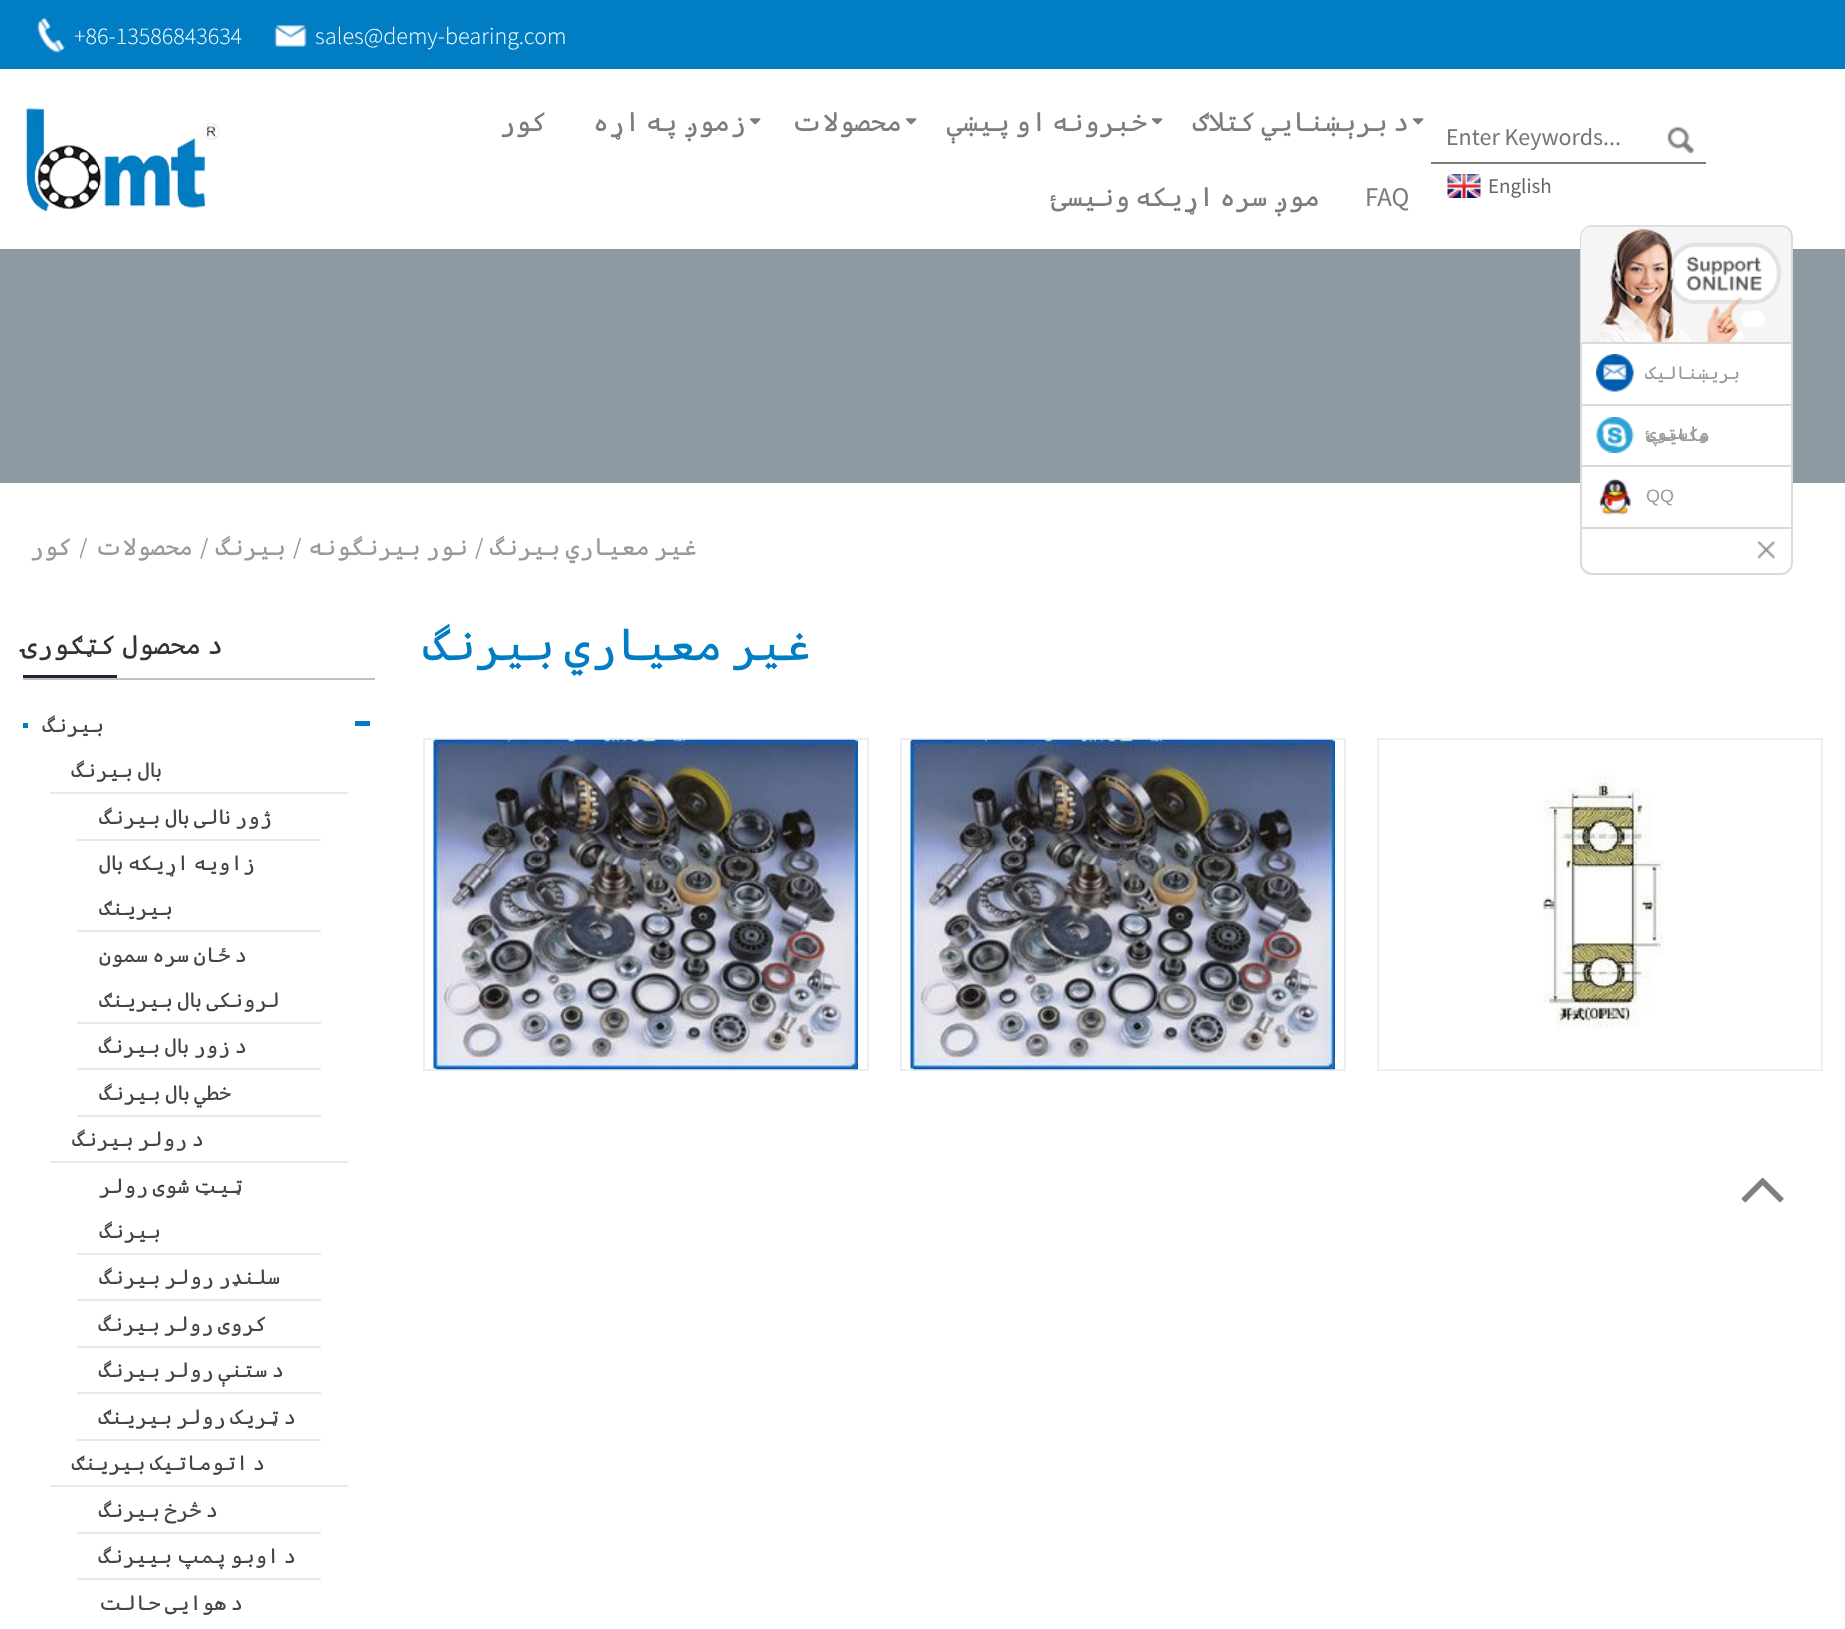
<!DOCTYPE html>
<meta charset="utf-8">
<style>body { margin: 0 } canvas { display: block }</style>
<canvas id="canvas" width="1845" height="1629"></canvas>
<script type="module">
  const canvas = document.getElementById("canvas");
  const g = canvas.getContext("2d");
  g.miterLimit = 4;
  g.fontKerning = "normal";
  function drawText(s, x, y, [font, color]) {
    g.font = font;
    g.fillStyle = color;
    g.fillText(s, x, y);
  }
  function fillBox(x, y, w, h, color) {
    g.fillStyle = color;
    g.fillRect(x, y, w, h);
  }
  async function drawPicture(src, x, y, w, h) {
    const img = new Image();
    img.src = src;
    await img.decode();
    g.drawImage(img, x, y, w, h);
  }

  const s1 = ["300 24px Source Sans Pro", "#FFFFFF"];
  const s2 = ["24px Source Sans Pro", "#757575"];
  const s3 = ["21px Source Sans Pro", "#666666"];
  const s4 = ["27px Cascadia Code", "#7C7C7C"];
  const s5 = ["27px Source Sans Pro", "#7C7C7C"];
  const s6 = ["18px Cascadia Code", "#999999"];
  const s7 = ["18px Liberation Sans", "#999999"];
  const s8 = ["24px Cascadia Code", "#999999"];
  const s9 = ["24px Source Sans Pro", "#999999"];
  const s10 = ["45px Cascadia Code", "#017DC3"];
  const s11 = ["27px Cascadia Code", "#333333"];
  const s12 = ["21px Cascadia Code", "#444444"];

  fillBox(0, 0, 1845, 1629, "#FFFFFF");
  await drawPicture("pic1.png", 1741, 1177, 43, 26);
  fillBox(0, 0, 1845, 69, "#017DC3");
  drawText("sales@demy-bearing.com", 315, 44, s1);
  await drawPicture("pic2.png", 274, 25, 33, 22);
  drawText("+86-13586843634", 74, 44, s1);
  await drawPicture("pic3.png", 37, 17, 28, 36);
  fillBox(1431, 162, 275, 2, "#7A7A7A");
  await drawPicture("pic4.png", 1667, 127, 27, 27);
  drawText("Enter Keywords...", 1446, 145, s2);
  drawText("English", 1488, 193, s3);
  await drawPicture("pic5.png", 1447, 174, 34, 24);
  g.wordSpacing = "-10.5px";
  g.direction = "rtl";
  drawText("د برېښنايي کتلاګ", 1409, 131, s4);
  await drawPicture("pic6.png", 1413, 118, 11, 7);
  await drawPicture("pic7.png", 1413, 118, 11, 7);
  drawText("خبرونه او پیښې", 1147, 131, s4);
  await drawPicture("pic8.png", 1152, 118, 11, 7);
  await drawPicture("pic9.png", 1152, 118, 11, 7);
  await drawPicture("pic6.png", 906, 118, 11, 7);
  g.wordSpacing = "0px";
  drawText("محصولات", 902, 131, s4);
  await drawPicture("pic7.png", 906, 118, 11, 7);
  g.wordSpacing = "-10.5px";
  drawText("زموږ په اړه", 746, 131, s4);
  await drawPicture("pic6.png", 750, 118, 11, 7);
  await drawPicture("pic7.png", 750, 118, 11, 7);
  g.wordSpacing = "0px";
  drawText("کور", 547, 131, s4);
  g.direction = "ltr";
  drawText("FAQ", 1365, 206, s5);
  g.wordSpacing = "-10.5px";
  g.direction = "rtl";
  drawText("موږ سره اړیکه ونیسئ", 1320, 206, s4);
  await drawPicture("pic10.png", 25, 108, 195, 104);
  fillBox(0, 249, 1845, 234, "#8D9AA2");
  g.fillStyle = "#FFFFFF";
  g.beginPath();
  g.roundRect(1581, 226, 211, 348, 11);
  g.fill();
  g.strokeStyle = "#DADADA";
  g.lineWidth = 2;
  g.stroke();
  await drawPicture("pic11.png", 1581, 226, 210, 116);
  fillBox(1581, 342, 210, 2, "#DADADA");
  fillBox(1581, 404, 210, 2, "#DADADA");
  g.wordSpacing = "0px";
  drawText("بریښنالیک", 1740, 379, s6);
  await drawPicture("pic12.png", 1596, 354, 38, 38);
  drawText("واستوئ", 1709, 439, s6);
  fillBox(1581, 465, 210, 2, "#DADADA");
  drawText("سکایپ", 1709, 441, s6);
  await drawPicture("pic13.png", 1596, 417, 38, 36);
  fillBox(1581, 527, 210, 2, "#DADADA");
  g.direction = "ltr";
  drawText("QQ", 1646, 502, s7);
  await drawPicture("pic14.png", 1599, 478, 32, 37);
  await drawPicture("pic15.png", 1758, 541, 17, 18);
  g.wordSpacing = "-9px";
  g.direction = "rtl";
  drawText("غیر معیاري بیرنگ", 697, 555, s8);
  drawText("نور بیرنگونه", 468, 555, s8);
  g.wordSpacing = "0px";
  g.direction = "ltr";
  drawText("/", 475, 555, s9);
  drawText("/", 293, 555, s9);
  g.direction = "rtl";
  drawText("بیرنگ", 286, 555, s8);
  g.direction = "ltr";
  drawText("/", 200, 555, s9);
  g.direction = "rtl";
  drawText("محصولات", 193, 555, s8);
  g.save();
  g.beginPath();
  g.rect(80, 521, 7, 52);
  g.clip();
  g.direction = "ltr";
  drawText("/", 79, 555, s9);
  g.restore();
  drawText("کور", 72, 555, s8);
  g.wordSpacing = "-17px";
  drawText("غیر معیاري بیرنگ", 811, 660, s10);
  g.strokeStyle = "#EEEEEE";
  g.strokeRect(1378, 739, 444, 331);
  await drawPicture("pic16.png", 1543, 775, 121, 253);
  g.strokeRect(901, 739, 444, 331);
  await drawPicture("pic17.png", 910, 739, 425, 331);
  g.strokeRect(424, 739, 444, 331);
  await drawPicture("pic18.png", 433, 739, 425, 331);
  fillBox(23, 678, 352, 2, "#C0C0C0");
  g.wordSpacing = "-10px";
  drawText("د محصول کټګورۍ", 223, 654, s11);
  fillBox(23, 675, 94, 3, "#1E263C");
  fillBox(355, 721, 15, 5, "#017DC3");
  g.wordSpacing = "0px";
  drawText("بیرنگ", 104, 732, s12);
  fillBox(23, 723, 5, 5, "#017DC3");
  fillBox(50, 792, 298, 2, "#E8E9EB");
  g.wordSpacing = "-8px";
  drawText("بال بیرنگ", 162, 777, s12);
  fillBox(77, 839, 244, 2, "#E8E9EB");
  drawText("ژور نالی بال بیرنگ", 272, 824, s12);
  fillBox(77, 930, 244, 2, "#E8E9EB");
  drawText("زاویه اړیکه بال", 255, 870, s12);
  g.wordSpacing = "0px";
  drawText("بیرینګ", 173, 915, s12);
  fillBox(77, 1022, 244, 2, "#E8E9EB");
  g.wordSpacing = "-8px";
  drawText("د ځان سره سمون", 247, 962, s12);
  drawText("لرونکی بال بیرینګ", 280, 1007, s12);
  fillBox(77, 1068, 244, 2, "#E8E9EB");
  drawText("د زور بال بیرنگ", 247, 1053, s12);
  fillBox(77, 1115, 244, 2, "#E8E9EB");
  drawText("خطي بال بیرنگ", 231, 1100, s12);
  fillBox(50, 1161, 298, 2, "#E8E9EB");
  drawText("د رولر بیرنگ", 204, 1146, s12);
  fillBox(77, 1253, 244, 2, "#E8E9EB");
  drawText("ټیټ شوی رولر", 243, 1193, s12);
  g.wordSpacing = "0px";
  drawText("بیرنگ", 161, 1238, s12);
  fillBox(77, 1299, 244, 2, "#E8E9EB");
  g.wordSpacing = "-8px";
  drawText("سلنډر رولر بیرنگ", 280, 1284, s12);
  fillBox(77, 1346, 244, 2, "#E8E9EB");
  drawText("کروی رولر بیرنگ", 267, 1331, s12);
  fillBox(77, 1392, 244, 2, "#E8E9EB");
  drawText("د ستنې رولر بیرنگ", 284, 1377, s12);
  fillBox(77, 1439, 244, 2, "#E8E9EB");
  drawText("د ټریک رولر بیرینګ", 296, 1424, s12);
  fillBox(50, 1485, 298, 2, "#E8E9EB");
  drawText("د اتوماتیک بیرینګ", 265, 1470, s12);
  fillBox(77, 1532, 244, 2, "#E8E9EB");
  drawText("د څرخ بیرنگ", 218, 1517, s12);
  fillBox(77, 1578, 244, 2, "#E8E9EB");
  drawText("د اوبو پمپ بییرنگ", 296, 1563, s12);
  drawText("د هوایی حالت", 243, 1610, s12);
</script>
